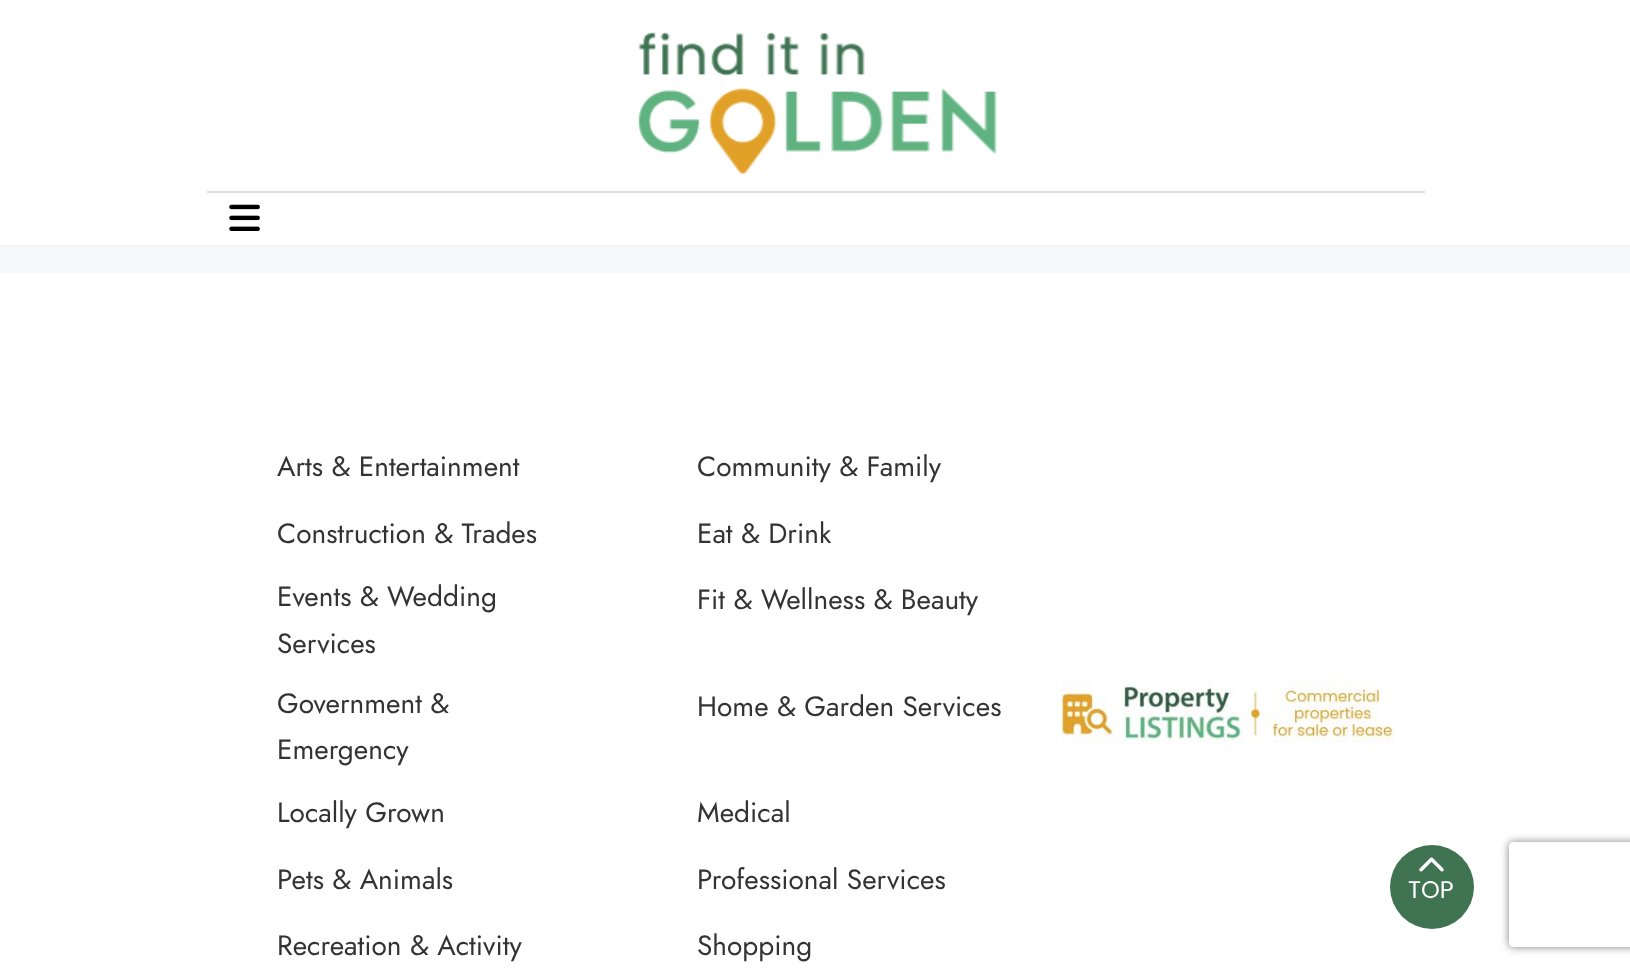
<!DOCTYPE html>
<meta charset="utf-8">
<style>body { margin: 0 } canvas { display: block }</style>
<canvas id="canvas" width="1630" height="971"></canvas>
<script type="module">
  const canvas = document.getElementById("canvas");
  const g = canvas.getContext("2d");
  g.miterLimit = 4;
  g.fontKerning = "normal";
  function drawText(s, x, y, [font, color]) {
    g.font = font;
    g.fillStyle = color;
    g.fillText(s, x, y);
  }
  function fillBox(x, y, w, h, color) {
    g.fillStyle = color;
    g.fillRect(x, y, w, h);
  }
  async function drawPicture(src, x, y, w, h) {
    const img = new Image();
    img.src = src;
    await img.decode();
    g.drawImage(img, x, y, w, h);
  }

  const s1 = ["28px Jost", "#333333"];
  const s2 = ["24px Poppins", "#FFFFFF"];

  fillBox(0, 0, 1630, 971, "#FFFFFF");
  fillBox(0, 245, 1630, 2, "#F4F4F4");
  fillBox(207, 191, 1218, 2, "#DDDDDD");
  await drawPicture("pic1.png", 638, 31, 360, 143);
  await drawPicture("pic2.png", 229, 204, 31, 27);
  fillBox(0, 247, 1630, 26, "#F8F9FA");
  drawText("Arts & Entertainment", 277, 476, s1);
  drawText("Community & Family", 697, 476, s1);
  drawText("Construction & Trades", 277, 543, s1);
  drawText("Eat & Drink", 697, 543, s1);
  drawText("Events & Wedding", 277, 606, s1);
  drawText("Services", 277, 653, s1);
  drawText("Fit & Wellness & Beauty", 697, 609, s1);
  drawText("Government &", 277, 713, s1);
  drawText("Emergency", 277, 759, s1);
  drawText("Home & Garden Services", 697, 716, s1);
  drawText("Locally Grown", 277, 822, s1);
  drawText("Medical", 697, 822, s1);
  drawText("Pets & Animals", 277, 889, s1);
  drawText("Professional Services", 697, 889, s1);
  drawText("Recreation & Activity", 277, 955, s1);
  drawText("Shopping", 697, 955, s1);
  await drawPicture("pic3.png", 1060, 681, 334, 62);
  g.fillStyle = "#407352";
  g.beginPath();
  g.arc(1432, 887, 42, 0, Math.PI * 2);
  g.fill();
  await drawPicture("pic4.png", 1419, 857, 25, 15);
  drawText("TOP", 1408, 898, s2);
  g.save();
  g.beginPath();
  g.moveTo(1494, 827);
  g.lineTo(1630, 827);
  g.lineTo(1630, 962);
  g.lineTo(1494, 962);
  g.closePath();
  g.moveTo(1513, 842);
  g.lineTo(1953, 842);
  g.bezierCurveTo(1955, 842, 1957, 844, 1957, 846);
  g.lineTo(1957, 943);
  g.bezierCurveTo(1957, 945, 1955, 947, 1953, 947);
  g.lineTo(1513, 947);
  g.bezierCurveTo(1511, 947, 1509, 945, 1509, 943);
  g.lineTo(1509, 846);
  g.bezierCurveTo(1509, 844, 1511, 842, 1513, 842);
  g.closePath();
  g.clip("evenodd");
  g.fillStyle = "#808080";
  g.filter = "blur(4.5px)";
  g.beginPath();
  g.roundRect(1509, 842, 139, 105, 4);
  g.fill();
  g.filter = "none";
  g.restore();
</script>
